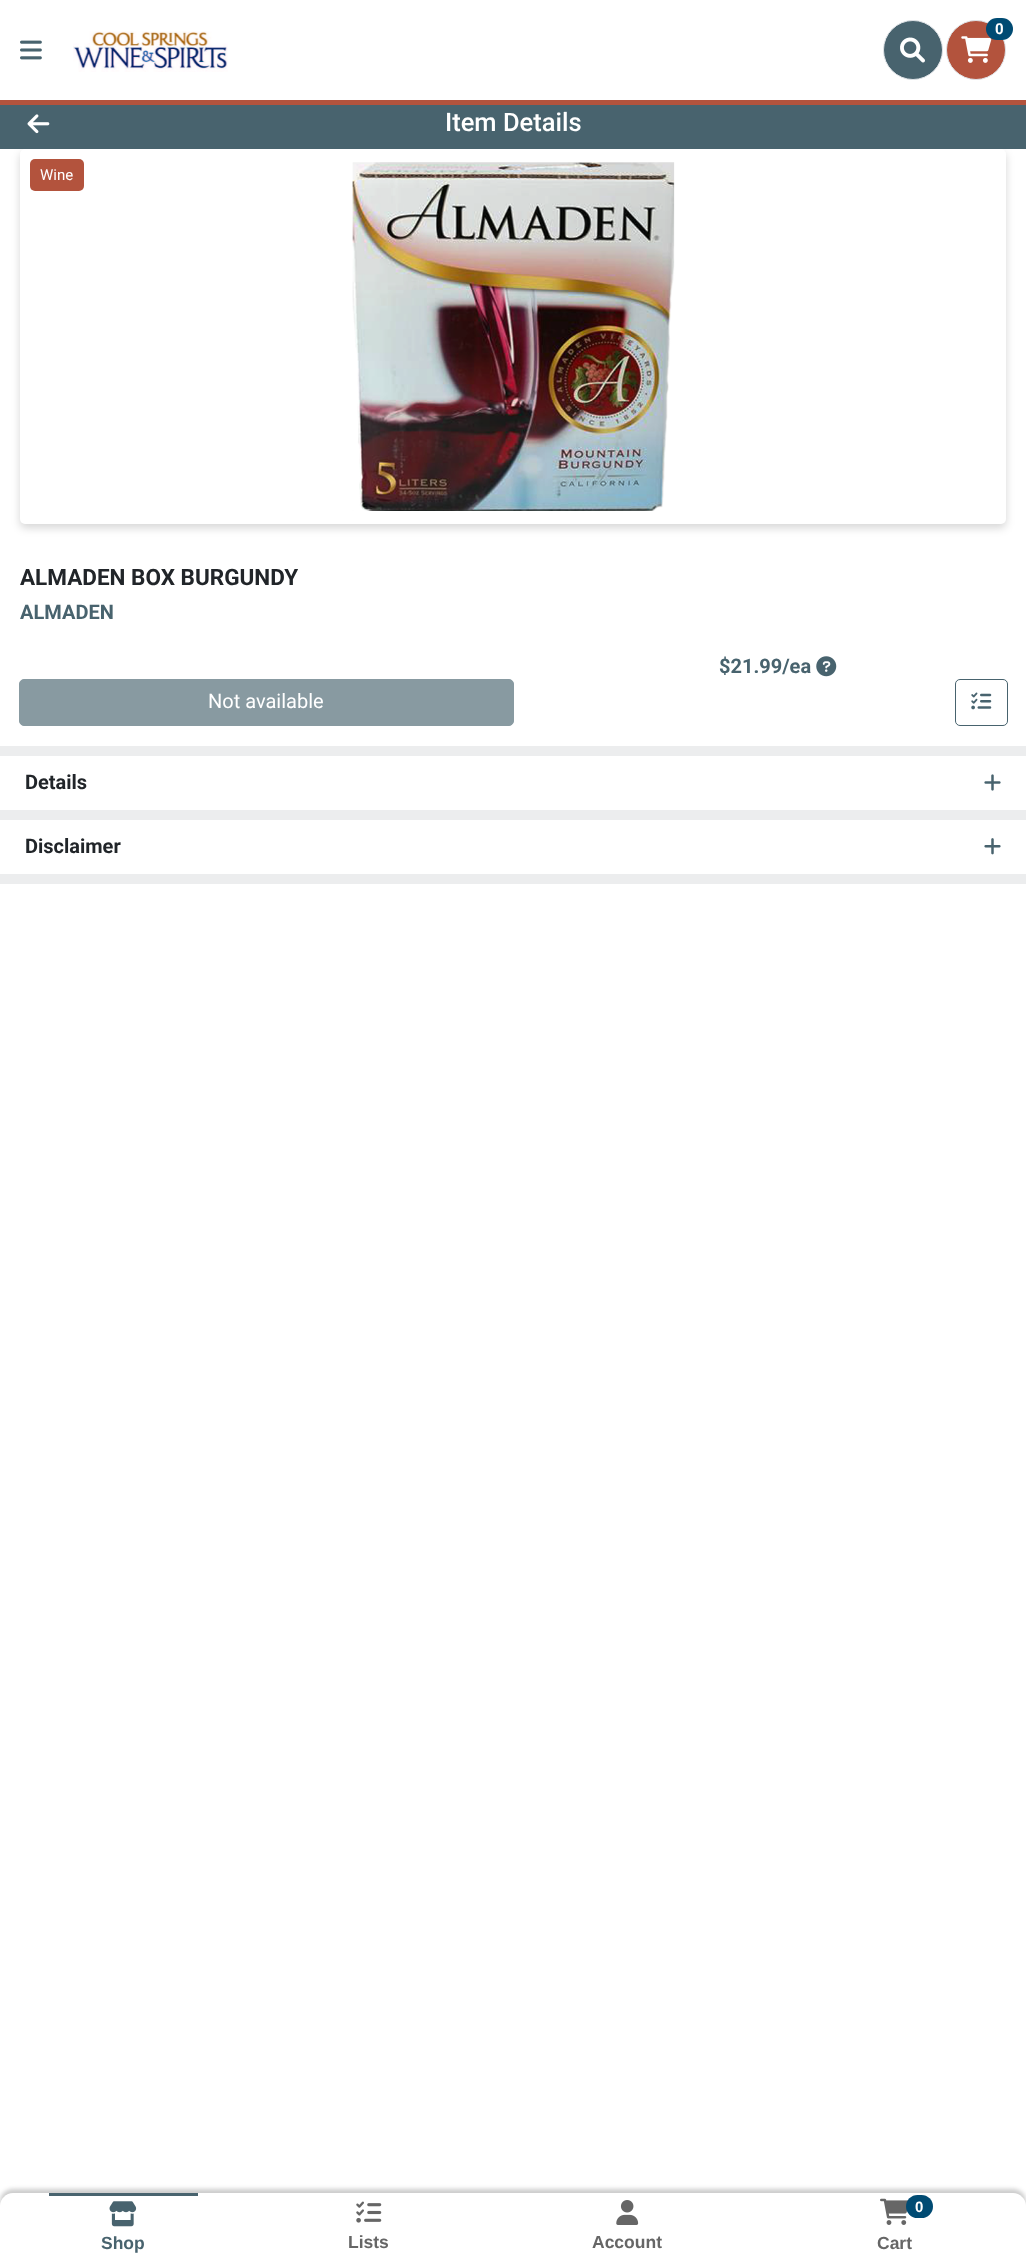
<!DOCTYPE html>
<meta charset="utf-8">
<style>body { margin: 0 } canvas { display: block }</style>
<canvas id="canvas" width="1026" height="2262"></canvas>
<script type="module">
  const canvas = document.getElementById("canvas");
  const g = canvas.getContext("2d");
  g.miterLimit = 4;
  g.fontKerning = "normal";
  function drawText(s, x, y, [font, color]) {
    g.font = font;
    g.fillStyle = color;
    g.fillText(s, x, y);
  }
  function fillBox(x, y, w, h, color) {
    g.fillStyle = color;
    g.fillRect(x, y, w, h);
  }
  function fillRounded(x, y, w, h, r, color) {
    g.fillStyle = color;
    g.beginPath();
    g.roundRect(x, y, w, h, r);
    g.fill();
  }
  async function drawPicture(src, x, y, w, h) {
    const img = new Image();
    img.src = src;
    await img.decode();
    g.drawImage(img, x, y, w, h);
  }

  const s1 = ["bold 15px Roboto", "#FFFFFF"];
  const s2 = ["500 25.5px Roboto", "#FFFFFF"];
  const s3 = ["15px Roboto", "#FFFFFF"];
  const s4 = ["bold 22.5px Roboto", "#212529"];
  const s5 = ["bold 20px Roboto", "#48636E"];
  const s6 = ["20px Roboto", "#FFFFFF"];
  const s7 = ["bold 20px Roboto", "#212529"];
  const s8 = ["bold 17.5px Liberation Sans", "#48636E"];
  const s9 = ["bold 17.5px Liberation Sans", "#666666"];
  const s10 = ["bold 15px Liberation Sans", "#FFFFFF"];

  fillBox(0, 0, 1026, 2262, "#FFFFFF");
  fillBox(0, 100, 1026, 5, "#B3533D");
  g.fillStyle = "#48636E";
  g.beginPath();
  g.arc(913, 50, 29.5, 0, Math.PI * 2);
  g.fill();
  g.strokeStyle = "#DEE2E6";
  g.stroke();
  await drawPicture("pic1.png", 900, 37, 25, 26);
  g.fillStyle = "#B3533D";
  g.beginPath();
  g.arc(976, 50, 29.5, 0, Math.PI * 2);
  g.fill();
  g.stroke();
  await drawPicture("pic2.png", 961, 36, 31, 27);
  fillRounded(986, 18, 27, 22, 11, "#004B73");
  drawText("0", 995, 34, s1);
  await drawPicture("pic3.png", 20, 40, 22, 20);
  await drawPicture("pic4.png", 73, 31, 155, 41);
  g.fillStyle = "rgba(0, 0, 0, 0.16)";
  g.filter = "blur(4px)";
  g.beginPath();
  g.roundRect(20, 153, 986, 375, 5);
  g.fill();
  g.filter = "none";
  fillBox(0, 105, 1026, 44, "#48636E");
  await drawPicture("pic5.png", 27, 114, 23, 20);
  drawText("Item Details", 445, 131, s2);
  fillRounded(20, 149, 986, 375, 5, "#FFFFFF");
  await drawPicture("pic6.png", 352, 162, 323, 349);
  fillRounded(30, 159, 54, 32, 5, "#B3533D");
  drawText("Wine", 40, 180, s3);
  drawText("ALMADEN BOX BURGUNDY", 20, 585, s4);
  drawText("ALMADEN", 20, 619, s5);
  drawText("$21.99/ea", 719, 673, s5);
  await drawPicture("pic7.png", 816, 656, 21, 21);
  g.fillStyle = "#889AA1";
  g.beginPath();
  g.roundRect(19.5, 679.5, 494, 46, 4.5);
  g.fill();
  g.strokeStyle = "#889AA1";
  g.stroke();
  drawText("Not available", 208, 708, s6);
  g.beginPath();
  g.roundRect(955.5, 679.5, 52, 46, 4.5);
  g.strokeStyle = "#48636E";
  g.stroke();
  await drawPicture("pic8.png", 971, 692, 21, 18);
  fillBox(0, 746, 1026, 10, "#ECEDEE");
  drawText("Details", 25, 789, s7);
  await drawPicture("pic9.png", 984, 774, 17, 17);
  fillBox(0, 810, 1026, 74, "#ECEDEE");
  fillBox(0, 820, 1026, 54, "#FFFFFF");
  drawText("Disclaimer", 25, 853, s7);
  await drawPicture("pic10.png", 984, 838, 17, 17);
  g.fillStyle = "rgba(0, 0, 0, 0.2)";
  g.filter = "blur(2px)";
  g.beginPath();
  g.roundRect(0, 2189, 1026, 70, 13);
  g.fill();
  g.filter = "none";
  g.fillStyle = "#FFFFFF";
  g.beginPath();
  g.moveTo(13, 2193);
  g.lineTo(1013, 2193);
  g.bezierCurveTo(1020, 2193, 1026, 2199, 1026, 2206);
  g.lineTo(1026, 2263);
  g.lineTo(0, 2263);
  g.lineTo(0, 2206);
  g.bezierCurveTo(0, 2199, 6, 2193, 13, 2193);
  g.closePath();
  g.fill();
  fillBox(49, 2193, 149, 3, "#48636E");
  await drawPicture("pic11.png", 109, 2201, 28, 26);
  drawText("Shop", 101, 2249, s8);
  await drawPicture("pic12.png", 356, 2201, 26, 22);
  drawText("Lists", 348, 2248, s9);
  await drawPicture("pic13.png", 616, 2200, 23, 25);
  drawText("Account", 592, 2248, s9);
  await drawPicture("pic14.png", 880, 2198, 28, 27);
  fillRounded(906, 2195, 27, 23, 11.5, "#004B73");
  drawText("0", 915, 2212, s10);
  drawText("Cart", 877, 2249, s9);
</script>
